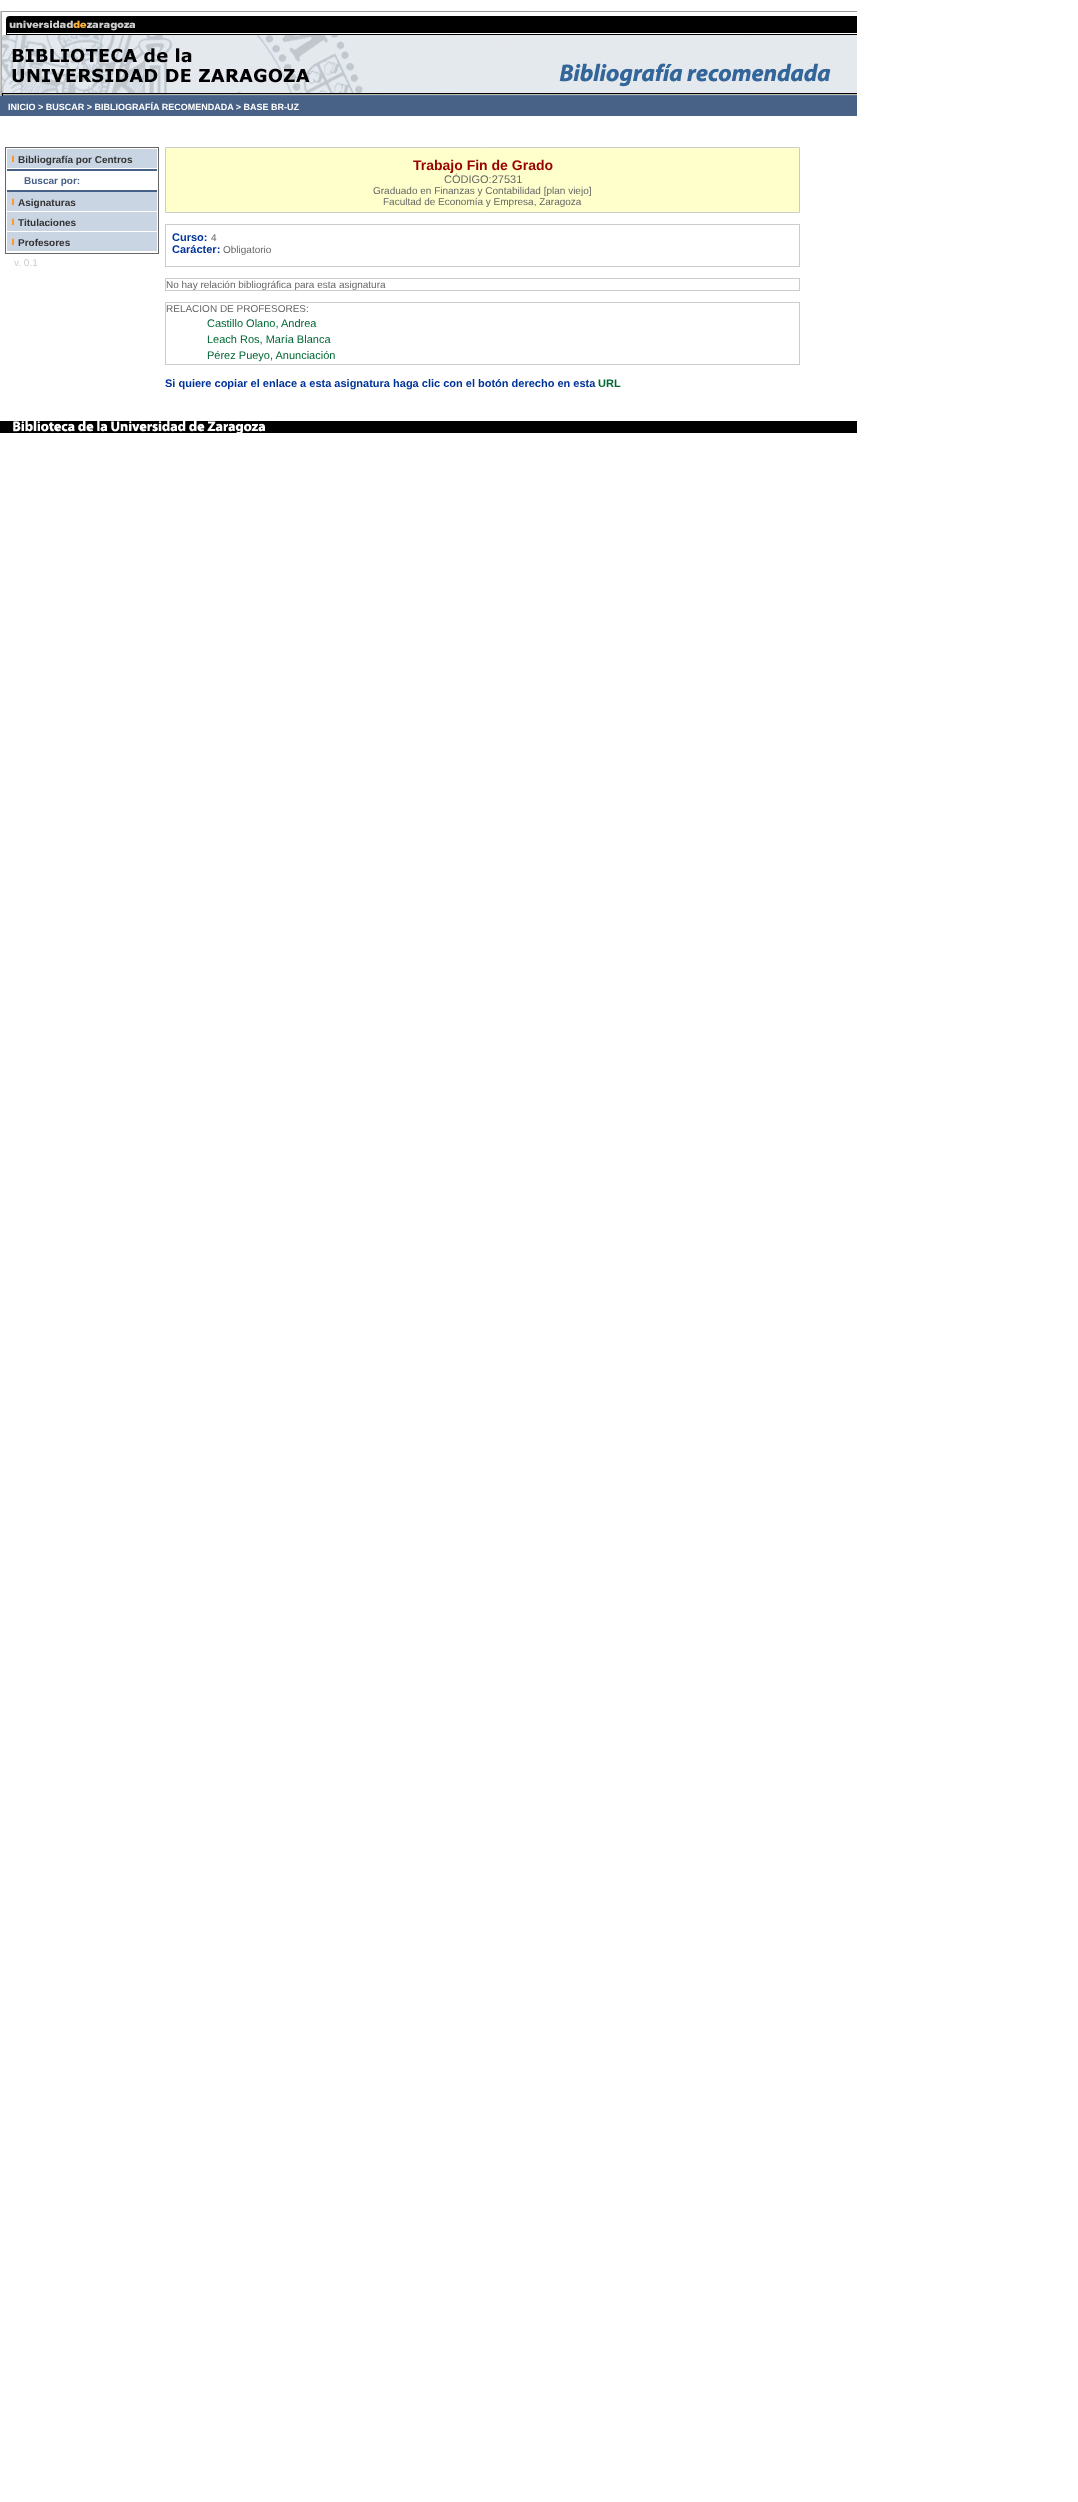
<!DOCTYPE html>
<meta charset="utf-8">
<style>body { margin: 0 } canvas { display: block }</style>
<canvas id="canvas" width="1078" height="2502"></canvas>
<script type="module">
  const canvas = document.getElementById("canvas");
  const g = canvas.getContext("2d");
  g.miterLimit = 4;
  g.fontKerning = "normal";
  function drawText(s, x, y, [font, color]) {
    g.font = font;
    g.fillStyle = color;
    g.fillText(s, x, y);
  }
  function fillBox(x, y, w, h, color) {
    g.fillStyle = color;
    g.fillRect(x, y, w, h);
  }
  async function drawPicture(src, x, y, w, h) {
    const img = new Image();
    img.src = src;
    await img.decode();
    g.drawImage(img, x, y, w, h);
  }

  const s1 = ["bold 9px Liberation Sans", "#FFFFFF"];
  const s2 = ["bold 10px Liberation Sans", "#333333"];
  const s3 = ["bold 10px Liberation Sans", "#486187"];
  const s4 = ["10px Liberation Sans", "#CCCCCC"];
  const s5 = ["bold 14px Liberation Sans", "#990000"];
  const s6 = ["11px Liberation Sans", "#666666"];
  const s7 = ["10px Liberation Sans", "#666666"];
  const s8 = ["bold 11px Liberation Sans", "#003399"];
  const s9 = ["11px Liberation Sans", "#006633"];
  const s10 = ["bold 11px Liberation Sans", "#006633"];

  fillBox(0, 0, 1078, 2502, "#FFFFFF");
  await drawPicture("pic1.png", 0, 11, 857, 85);
  fillBox(0, 96, 857, 20, "#486187");
  drawText("INICIO > BUSCAR > BIBLIOGRAFÍA RECOMENDADA > BASE BR-UZ", 8, 110, s1);
  g.strokeStyle = "#666666";
  g.strokeRect(5.5, 147.5, 153, 106);
  fillBox(7, 149, 150, 19, "#CAD5E4");
  await drawPicture("pic2.png", 12, 155, 2, 8);
  drawText("Bibliografía por Centros", 18, 163, s2);
  fillBox(7, 169, 150, 2, "#486187");
  fillBox(7, 190, 150, 2, "#486187");
  drawText("Buscar por:", 24, 184, s3);
  fillBox(7, 192, 150, 19, "#CAD5E4");
  await drawPicture("pic2.png", 12, 198, 2, 8);
  drawText("Asignaturas", 18, 206, s2);
  fillBox(7, 212, 150, 19, "#CAD5E4");
  await drawPicture("pic2.png", 12, 218, 2, 8);
  drawText("Titulaciones", 18, 226, s2);
  fillBox(7, 232, 150, 19, "#CAD5E4");
  await drawPicture("pic2.png", 12, 238, 2, 8);
  drawText("Profesores", 18, 246, s2);
  drawText("v. 0.1", 14, 266, s4);
  g.fillStyle = "#FFFFCC";
  g.beginPath();
  g.rect(165.5, 147.5, 634, 65);
  g.fill();
  g.strokeStyle = "#CCCCCC";
  g.stroke();
  drawText("Trabajo Fin de Grado", 413, 170, s5);
  drawText("CÓDIGO:27531", 444, 183, s6);
  drawText("Graduado en Finanzas y Contabilidad [plan viejo]", 373, 194, s7);
  drawText("Facultad de Economía y Empresa, Zaragoza", 383, 205, s7);
  g.strokeRect(165.5, 224.5, 634, 42);
  drawText("Curso:", 172, 241, s8);
  drawText("4", 211, 241, s7);
  drawText("Carácter:", 172, 253, s8);
  drawText("Obligatorio", 223, 253, s7);
  fillBox(243, 255, 1, 1, "#FFFFFF");
  g.strokeRect(165.5, 278.5, 634, 12);
  drawText("No hay relación bibliográfica para esta asignatura", 166, 288, s7);
  g.strokeRect(165.5, 302.5, 634, 62);
  drawText("RELACION DE PROFESORES:", 166, 312, s7);
  drawText("Castillo Olano, Andrea", 207, 327, s9);
  drawText("Leach Ros, María Blanca", 207, 343, s9);
  drawText("Pérez Pueyo, Anunciación", 207, 359, s9);
  drawText("Si quiere copiar el enlace a esta asignatura haga clic con el botón derecho en esta", 165, 387, s8);
  drawText("URL", 598, 387, s10);
  await drawPicture("pic3.png", 0, 421, 857, 12);
</script>
